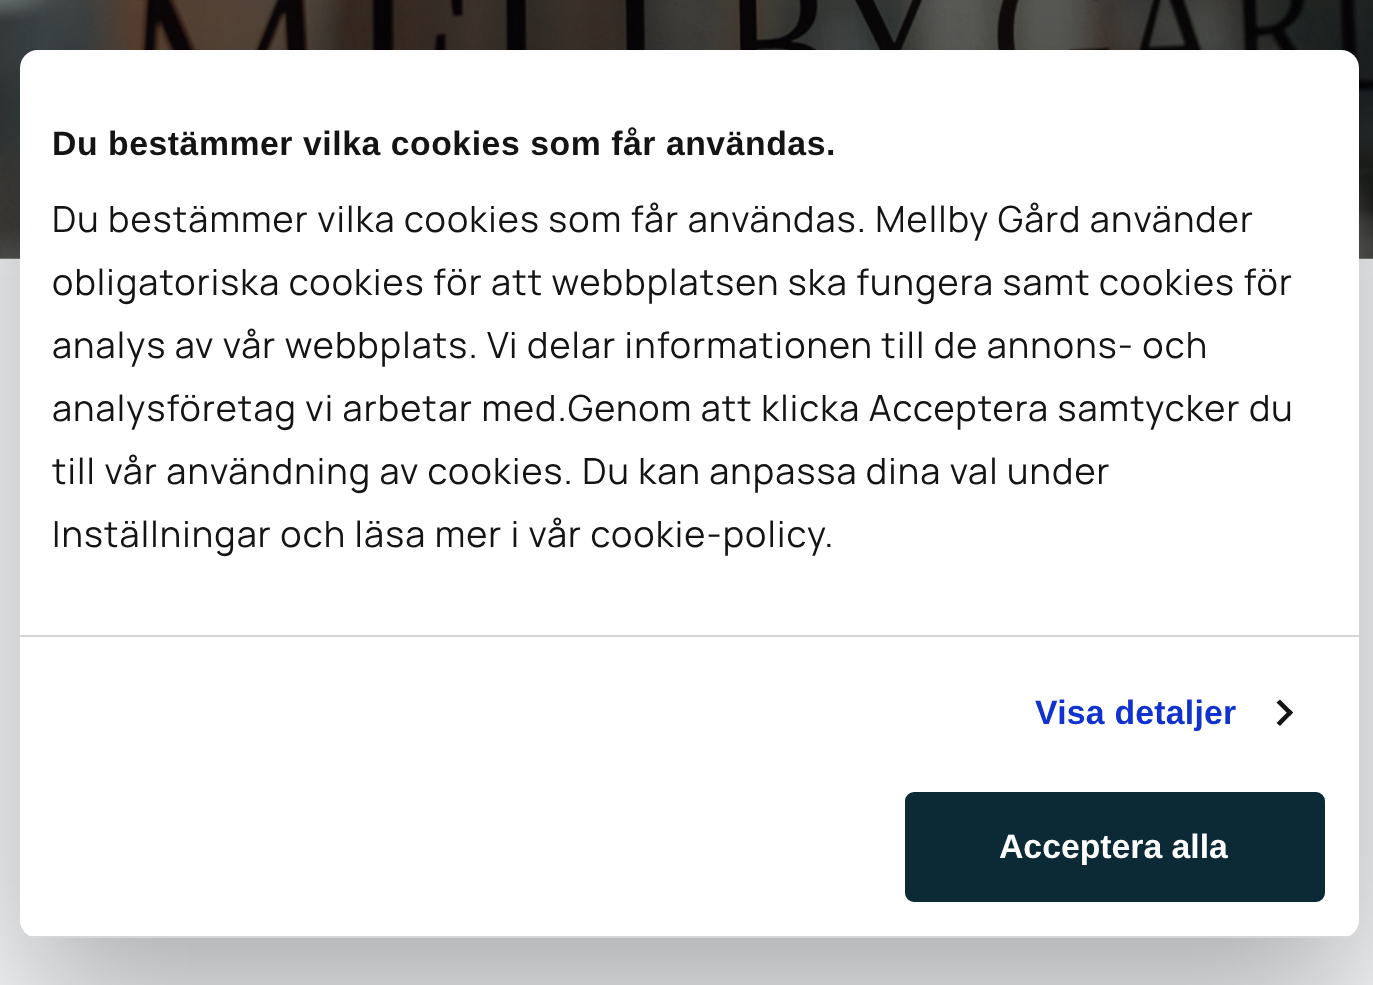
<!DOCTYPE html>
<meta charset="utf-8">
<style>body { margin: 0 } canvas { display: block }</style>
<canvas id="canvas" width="1373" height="985"></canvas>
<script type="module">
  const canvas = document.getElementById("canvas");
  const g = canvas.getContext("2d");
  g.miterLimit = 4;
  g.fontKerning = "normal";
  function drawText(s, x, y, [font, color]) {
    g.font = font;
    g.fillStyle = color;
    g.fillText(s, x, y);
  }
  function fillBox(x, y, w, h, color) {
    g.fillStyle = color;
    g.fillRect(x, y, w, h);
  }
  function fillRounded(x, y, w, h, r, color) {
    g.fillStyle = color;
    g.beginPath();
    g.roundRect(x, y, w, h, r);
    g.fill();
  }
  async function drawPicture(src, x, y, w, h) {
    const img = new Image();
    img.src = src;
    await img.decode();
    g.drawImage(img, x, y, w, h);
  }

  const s1 = ["bold 33.75px Liberation Sans", "#141414"];
  const s2 = ["36px Manrope", "#141414"];
  const s3 = ["bold 33.75px Liberation Sans", "#1032CF"];
  const s4 = ["bold 33.75px Liberation Sans", "#FFFFFF"];

  fillBox(0, 0, 1373, 985, "#F7F9FB");
  await drawPicture("pic1.png", 0, 0, 1373, 259);
  g.fillStyle = "rgba(0, 0, 0, 0.3)";
  g.filter = "blur(76.5px)";
  g.beginPath();
  g.roundRect(20, 122, 1339, 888, 18);
  g.fill();
  g.filter = "none";
  fillRounded(20, 50, 1339, 888, 18, "#FFFFFF");
  fillBox(20, 635, 1339, 2, "#D6D6D6");
  g.letterSpacing = "0.55px";
  drawText("Du bestämmer vilka cookies som får användas.", 52, 155, s1);
  g.letterSpacing = "1.12px";
  drawText("Du bestämmer vilka cookies som får användas. Mellby Gård använder", 52, 232, s2);
  drawText("obligatoriska cookies för att webbplatsen ska fungera samt cookies för", 52, 295, s2);
  drawText("analys av vår webbplats. Vi delar informationen till de annons- och", 52, 358, s2);
  drawText("analysföretag vi arbetar med.Genom att klicka Acceptera samtycker du", 52, 421, s2);
  drawText("till vår användning av cookies. Du kan anpassa dina val under", 52, 484, s2);
  drawText("Inställningar och läsa mer i vår cookie-policy.", 52, 547, s2);
  g.letterSpacing = "0.25px";
  drawText("Visa detaljer", 1035, 724, s3);
  g.fillStyle = "#141414";
  g.beginPath();
  g.moveTo(1280, 699.5);
  g.lineTo(1293, 712.5);
  g.lineTo(1290, 716);
  g.lineTo(1276.5, 702.5);
  g.closePath();
  g.fill();
  g.beginPath();
  g.moveTo(1290, 709.5);
  g.lineTo(1293, 712.5);
  g.lineTo(1280, 726);
  g.lineTo(1276.5, 723);
  g.closePath();
  g.fill();
  g.save();
  g.beginPath();
  g.roundRect(20, 50, 1339, 888, 18);
  g.clip();
  fillBox(30, 936, 1319, 2, "#D6D6D6");
  g.restore();
  g.fillStyle = "#0C2A36";
  g.beginPath();
  g.roundRect(907.5, 794.5, 415, 105, 6.5);
  g.fill();
  g.strokeStyle = "#0C2A36";
  g.lineWidth = 5;
  g.stroke();
  g.letterSpacing = "0px";
  drawText("Acceptera alla", 999, 858, s4);
</script>
